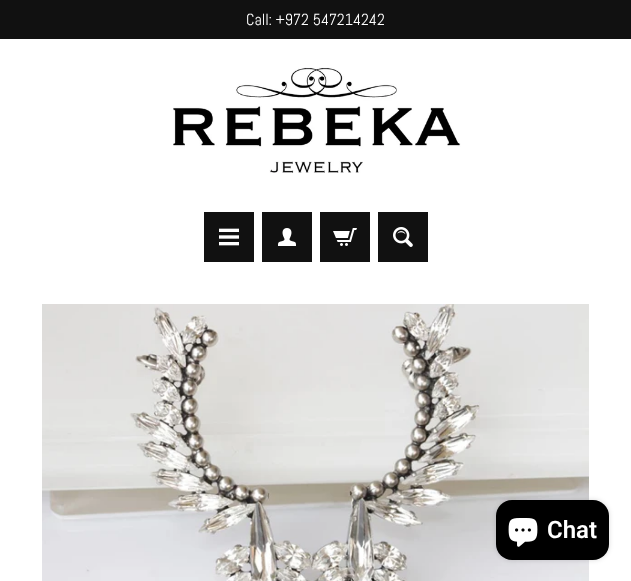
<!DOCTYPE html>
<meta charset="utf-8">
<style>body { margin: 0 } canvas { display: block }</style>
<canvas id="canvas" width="631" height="581"></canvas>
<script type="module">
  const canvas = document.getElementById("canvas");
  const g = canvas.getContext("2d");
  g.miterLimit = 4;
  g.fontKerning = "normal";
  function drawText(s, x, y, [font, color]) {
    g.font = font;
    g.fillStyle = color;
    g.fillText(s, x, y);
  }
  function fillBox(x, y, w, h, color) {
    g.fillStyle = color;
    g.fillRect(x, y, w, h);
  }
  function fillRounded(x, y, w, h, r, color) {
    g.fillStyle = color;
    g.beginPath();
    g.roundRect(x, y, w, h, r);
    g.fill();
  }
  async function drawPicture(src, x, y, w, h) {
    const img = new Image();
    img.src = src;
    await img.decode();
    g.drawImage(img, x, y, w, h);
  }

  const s1 = ["16px Abel", "#FFFFFF"];
  const s2 = ["600 24px Roboto", "#FFFFFF"];

  fillBox(0, 0, 631, 581, "#FFFFFF");
  fillBox(0, 0, 631, 39, "#111111");
  drawText("Call: +972 547214242", 246, 25, s1);
  await drawPicture("pic1.png", 173, 67, 288, 106);
  fillBox(204, 212, 50, 50, "#111111");
  await drawPicture("pic2.png", 219, 228, 20, 18);
  fillBox(262, 212, 50, 50, "#111111");
  await drawPicture("pic3.png", 278, 228, 18, 18);
  fillBox(320, 212, 50, 50, "#111111");
  await drawPicture("pic4.png", 333, 228, 24, 18);
  fillBox(378, 212, 50, 50, "#111111");
  await drawPicture("pic5.png", 393, 227, 20, 20);
  await drawPicture("pic6.png", 42, 304, 547, 277);
  g.fillStyle = "rgba(0, 0, 0, 0.15)";
  g.filter = "blur(2.5px)";
  g.beginPath();
  g.roundRect(496, 500, 113, 60, 16);
  g.fill();
  g.filter = "none";
  fillRounded(496, 500, 113, 60, 16, "#000000");
  await drawPicture("pic7.png", 508, 518, 30, 29);
  drawText("Chat", 547, 538, s2);
</script>
